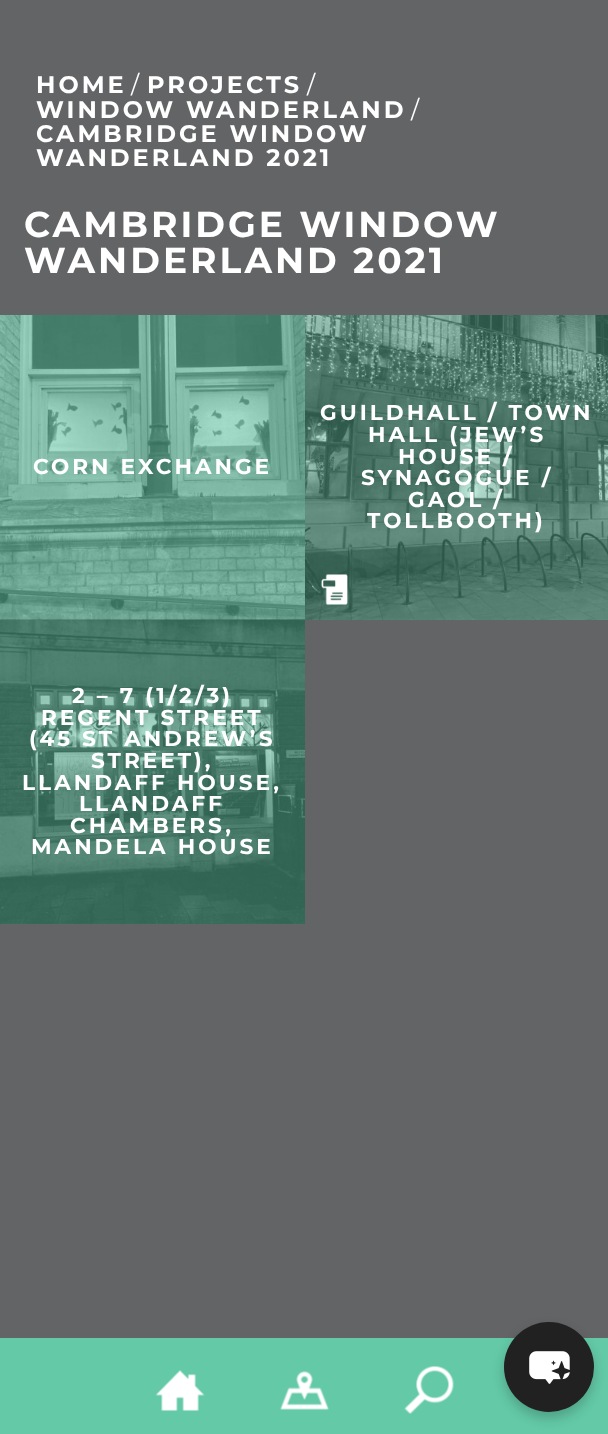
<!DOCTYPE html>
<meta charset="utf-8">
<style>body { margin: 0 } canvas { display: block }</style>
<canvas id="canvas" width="608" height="1434"></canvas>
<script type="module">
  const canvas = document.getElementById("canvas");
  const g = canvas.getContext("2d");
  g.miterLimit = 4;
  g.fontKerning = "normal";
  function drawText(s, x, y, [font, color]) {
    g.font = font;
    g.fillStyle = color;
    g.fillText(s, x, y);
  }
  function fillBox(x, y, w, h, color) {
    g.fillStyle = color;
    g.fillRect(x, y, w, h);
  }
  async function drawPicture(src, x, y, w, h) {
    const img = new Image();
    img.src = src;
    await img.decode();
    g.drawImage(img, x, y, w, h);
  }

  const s1 = ["bold 24px Montserrat", "#FFFFFF"];
  const s2 = ["24px Montserrat", "#FFFFFF"];
  const s3 = ["bold 36px Montserrat", "#FFFFFF"];
  const s4 = ["bold 21.6px Montserrat", "#FFFFFF"];

  fillBox(0, 0, 608, 1434, "#63C9A6");
  fillBox(0, 0, 608, 1338, "#636466");
  g.letterSpacing = "3px";
  drawText("HOME", 36, 93, s1);
  drawText("/", 131, 93, s2);
  drawText("PROJECTS", 147, 93, s1);
  drawText("/", 307, 93, s2);
  drawText("WINDOW WANDERLAND", 36, 118, s1);
  drawText("/", 411, 118, s2);
  drawText("CAMBRIDGE WINDOW", 36, 142, s1);
  drawText("WANDERLAND 2021", 36, 166, s1);
  drawText("CAMBRIDGE WINDOW", 24, 237, s3);
  drawText("WANDERLAND 2021", 24, 273, s3);
  fillBox(0, 315, 608, 305, "#63C9A6");
  await drawPicture("pic1.png", 0, 315, 305, 305);
  drawText("CORN EXCHANGE", 33, 474, s4);
  await drawPicture("pic2.png", 305, 315, 303, 305);
  drawText("GUILDHALL / TOWN", 320, 420, s4);
  drawText("HALL (JEW’S", 368, 442, s4);
  drawText("HOUSE /", 398, 464, s4);
  drawText("SYNAGOGUE /", 361, 485, s4);
  drawText("GAOL /", 408, 507, s4);
  drawText("TOLLBOOTH)", 367, 528, s4);
  await drawPicture("pic3.png", 321, 574, 27, 31);
  fillBox(0, 620, 305, 304, "#63C9A6");
  await drawPicture("pic4.png", 0, 619, 305, 305);
  drawText("2 – 7 (1/2/3)", 72, 703, s4);
  drawText("REGENT STREET", 41, 725, s4);
  drawText("(45 ST ANDREW’S", 29, 746, s4);
  drawText("STREET),", 91, 768, s4);
  drawText("LLANDAFF HOUSE,", 22, 790, s4);
  drawText("LLANDAFF", 79, 811, s4);
  drawText("CHAMBERS,", 70, 833, s4);
  drawText("MANDELA HOUSE", 31, 854, s4);
  await drawPicture("pic5.png", 155, 1370, 50, 41);
  await drawPicture("pic6.png", 280, 1371, 49, 39);
  await drawPicture("pic7.png", 404, 1366, 50, 48);
  g.fillStyle = "rgba(0, 0, 0, 0.2)";
  g.filter = "blur(6px)";
  g.beginPath();
  g.roundRect(504, 1328, 90, 90, 45);
  g.fill();
  g.filter = "none";
  g.fillStyle = "#212121";
  g.beginPath();
  g.arc(549, 1367, 45, 0, Math.PI * 2);
  g.fill();
  await drawPicture("pic8.png", 529, 1351, 41, 33);
</script>
